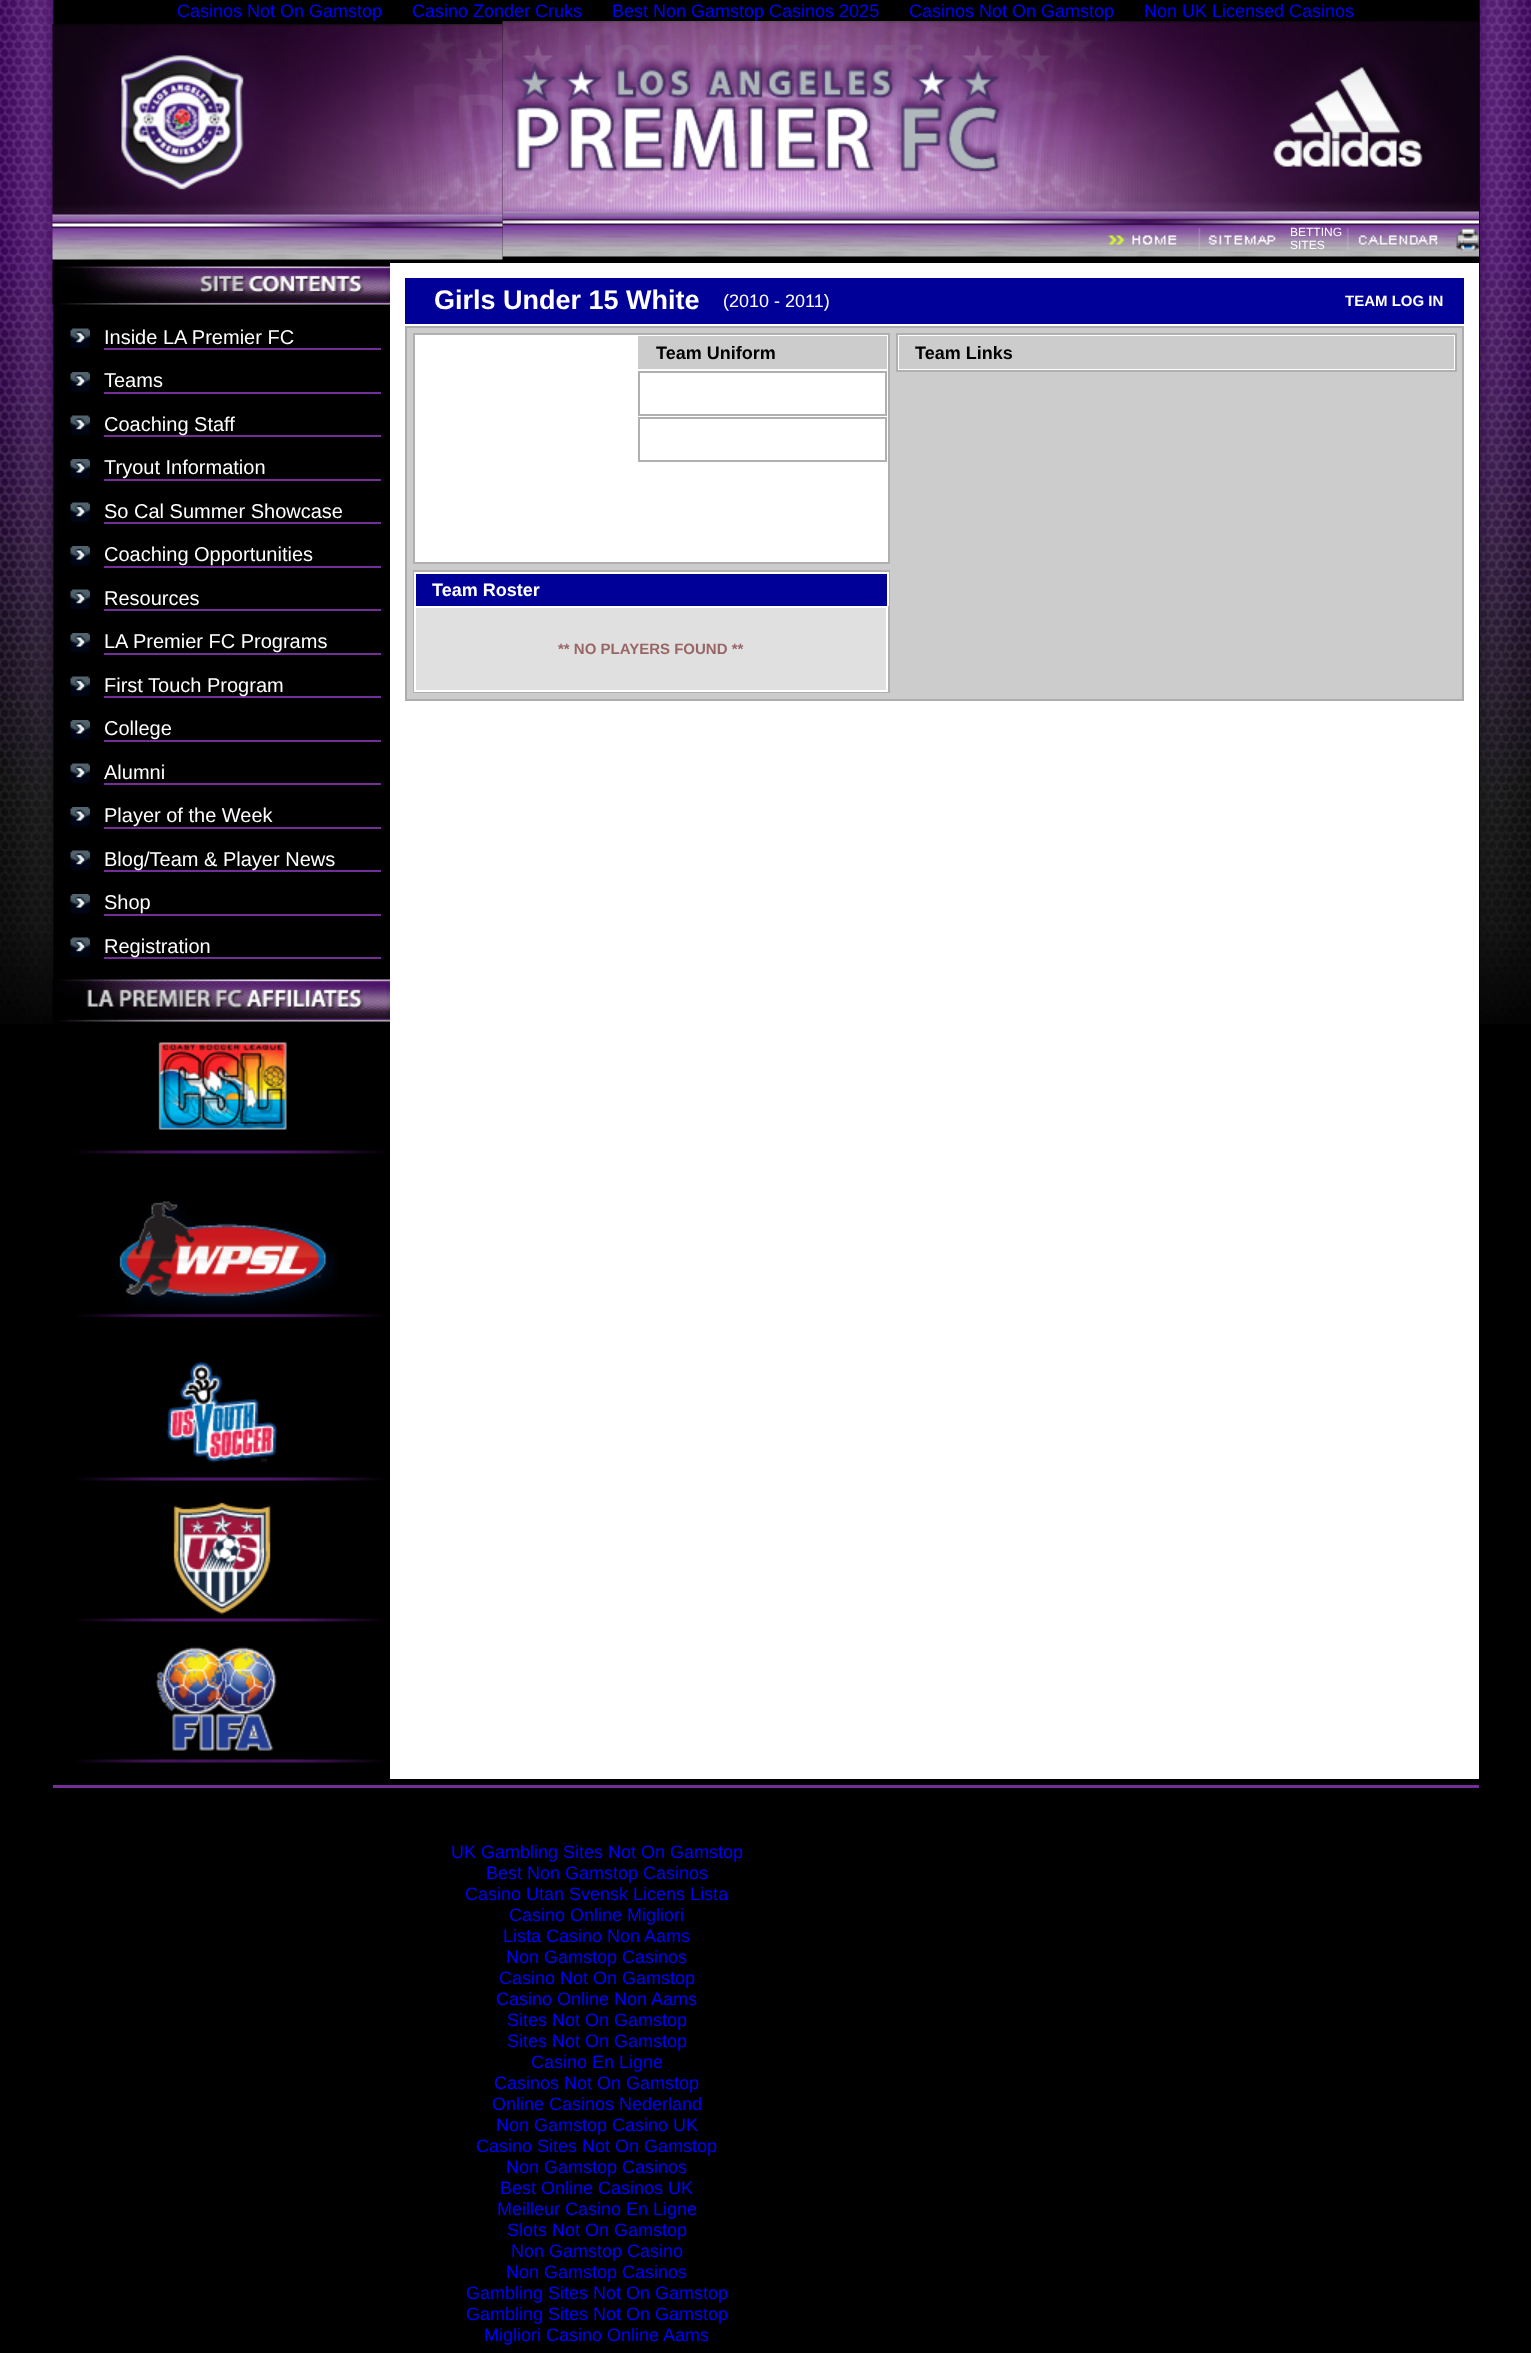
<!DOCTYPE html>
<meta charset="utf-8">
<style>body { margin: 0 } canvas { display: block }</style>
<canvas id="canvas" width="1531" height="2353"></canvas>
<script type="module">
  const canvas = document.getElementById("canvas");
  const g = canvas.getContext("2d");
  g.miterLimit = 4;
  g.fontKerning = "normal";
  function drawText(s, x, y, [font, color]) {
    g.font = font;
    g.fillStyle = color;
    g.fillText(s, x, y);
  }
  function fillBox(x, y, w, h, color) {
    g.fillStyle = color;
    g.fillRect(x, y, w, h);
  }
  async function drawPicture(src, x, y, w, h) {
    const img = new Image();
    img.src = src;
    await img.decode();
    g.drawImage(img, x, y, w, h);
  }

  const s1 = ["18px Liberation Sans", "#0000FF"];
  const s2 = ["12px Liberation Sans", "#FFFFFF"];
  const s3 = ["20px Liberation Sans", "#FFFFFF"];
  const s4 = ["bold 27px Liberation Sans", "#FFFFFF"];
  const s5 = ["18px Liberation Sans", "#FFFFFF"];
  const s6 = ["bold 15px Liberation Sans", "#FFFFFF"];
  const s7 = ["bold 18px Liberation Sans", "#000000"];
  const s8 = ["bold 18px Liberation Sans", "#FFFFFF"];
  const s9 = ["bold 15px Liberation Sans", "#996666"];

  fillBox(0, 0, 1531, 2353, "#000000");
  await drawPicture("pic1.png", 0, 0, 1531, 1024);
  drawText("Casinos Not On Gamstop", 177, 17, s1);
  drawText("Casino Zonder Cruks", 412, 17, s1);
  drawText("Best Non Gamstop Casinos 2025", 612, 17, s1);
  drawText("Casinos Not On Gamstop", 909, 17, s1);
  drawText("Non UK Licensed Casinos", 1144, 17, s1);
  await drawPicture("pic3.png", 502, 21, 977, 236);
  await drawPicture("pic2.png", 52, 24, 451, 237);
  await drawPicture("pic4.png", 1108, 235, 69, 10);
  await drawPicture("pic5.png", 1198, 228, 78, 23);
  drawText("BETTING", 1290, 236, s2);
  drawText("SITES", 1290, 249, s2);
  await drawPicture("pic6.png", 1346, 228, 92, 23);
  await drawPicture("pic7.png", 1456, 228, 23, 23);
  await drawPicture("pic8.png", 52, 262, 338, 43);
  await drawPicture("pic9.png", 70, 328, 20, 20);
  fillBox(104, 348, 277, 2, "#732F97");
  drawText("Inside LA Premier FC", 104, 344, s3);
  await drawPicture("pic10.png", 70, 372, 20, 20);
  fillBox(104, 392, 277, 2, "#732F97");
  drawText("Teams", 104, 387, s3);
  await drawPicture("pic9.png", 70, 415, 20, 20);
  fillBox(104, 435, 277, 2, "#732F97");
  drawText("Coaching Staff", 104, 431, s3);
  await drawPicture("pic10.png", 70, 459, 20, 20);
  fillBox(104, 479, 277, 2, "#732F97");
  drawText("Tryout Information", 104, 474, s3);
  await drawPicture("pic9.png", 70, 502, 20, 20);
  fillBox(104, 522, 277, 2, "#732F97");
  drawText("So Cal Summer Showcase", 104, 518, s3);
  await drawPicture("pic10.png", 70, 546, 20, 20);
  fillBox(104, 566, 277, 2, "#732F97");
  drawText("Coaching Opportunities", 104, 561, s3);
  await drawPicture("pic9.png", 70, 589, 20, 20);
  fillBox(104, 609, 277, 2, "#732F97");
  drawText("Resources", 104, 605, s3);
  await drawPicture("pic10.png", 70, 633, 20, 20);
  fillBox(104, 653, 277, 2, "#732F97");
  drawText("LA Premier FC Programs", 104, 648, s3);
  await drawPicture("pic9.png", 70, 676, 20, 20);
  fillBox(104, 696, 277, 2, "#732F97");
  drawText("First Touch Program", 104, 692, s3);
  await drawPicture("pic10.png", 70, 720, 20, 20);
  fillBox(104, 740, 277, 2, "#732F97");
  drawText("College", 104, 735, s3);
  await drawPicture("pic9.png", 70, 763, 20, 20);
  fillBox(104, 783, 277, 2, "#732F97");
  drawText("Alumni", 104, 779, s3);
  await drawPicture("pic10.png", 70, 807, 20, 20);
  fillBox(104, 827, 277, 2, "#732F97");
  drawText("Player of the Week", 104, 822, s3);
  await drawPicture("pic9.png", 70, 850, 20, 20);
  fillBox(104, 870, 277, 2, "#732F97");
  drawText("Blog/Team & Player News", 104, 866, s3);
  await drawPicture("pic10.png", 70, 894, 20, 20);
  fillBox(104, 914, 277, 2, "#732F97");
  drawText("Shop", 104, 909, s3);
  await drawPicture("pic9.png", 70, 937, 20, 20);
  fillBox(104, 957, 277, 2, "#732F97");
  drawText("Registration", 104, 953, s3);
  await drawPicture("pic11.png", 52, 979, 338, 43);
  await drawPicture("pic12.png", 75, 1042, 310, 112);
  await drawPicture("pic13.png", 75, 1201, 310, 117);
  await drawPicture("pic14.png", 75, 1361, 310, 120);
  await drawPicture("pic15.png", 75, 1502, 310, 120);
  await drawPicture("pic16.png", 75, 1646, 310, 117);
  fillBox(390, 263, 1089, 1516, "#FFFFFF");
  fillBox(405, 278, 1059, 46, "#000099");
  drawText("Girls Under 15 White", 434, 309, s4);
  drawText("(2010 - 2011)", 723, 307, s5);
  drawText("TEAM LOG IN", 1345, 306, s6);
  g.fillStyle = "#CCCCCC";
  g.beginPath();
  g.rect(406, 327, 1057, 373);
  g.fill();
  g.strokeStyle = "#ACACAC";
  g.lineWidth = 2;
  g.stroke();
  g.fillStyle = "#FFFFFF";
  g.beginPath();
  g.rect(414, 334, 475, 229);
  g.fill();
  g.strokeStyle = "#B0B0B0";
  g.stroke();
  fillBox(638, 336, 249, 33, "#CCCCCC");
  drawText("Team Uniform", 656, 359, s7);
  g.strokeRect(639, 372, 247, 43);
  g.strokeRect(639, 418, 247, 43);
  g.strokeRect(414, 571, 475, 121);
  fillBox(416, 574, 471, 32, "#000099");
  fillBox(414, 572, 474, 2, "#FFFFFF");
  fillBox(887, 572, 2, 34, "#FFFFFF");
  fillBox(414, 572, 2, 34, "#FFFFFF");
  drawText("Team Roster", 432, 596, s8);
  g.fillStyle = "#E0E0E0";
  g.beginPath();
  g.rect(415, 607, 472, 84);
  g.fill();
  g.strokeStyle = "#FFFFFF";
  g.stroke();
  drawText("** NO PLAYERS FOUND **", 558, 654, s9);
  g.fillStyle = "#FFFFFF";
  g.beginPath();
  g.rect(897, 334, 559, 37);
  g.fill();
  g.strokeStyle = "#B0B0B0";
  g.stroke();
  fillBox(899, 336, 555, 33, "#CCCCCC");
  drawText("Team Links", 915, 359, s7);
  fillBox(53, 1785, 1426, 3, "#732F97");
  drawText("UK Gambling Sites Not On Gamstop", 451, 1858, s1);
  drawText("Best Non Gamstop Casinos", 486, 1879, s1);
  drawText("Casino Utan Svensk Licens Lista", 465, 1900, s1);
  drawText("Casino Online Migliori", 509, 1921, s1);
  drawText("Lista Casino Non Aams", 503, 1942, s1);
  drawText("Non Gamstop Casinos", 506, 1963, s1);
  drawText("Casino Not On Gamstop", 499, 1984, s1);
  drawText("Casino Online Non Aams", 496, 2005, s1);
  drawText("Sites Not On Gamstop", 507, 2026, s1);
  drawText("Sites Not On Gamstop", 507, 2047, s1);
  drawText("Casino En Ligne", 531, 2068, s1);
  drawText("Casinos Not On Gamstop", 494, 2089, s1);
  drawText("Online Casinos Nederland", 492, 2110, s1);
  drawText("Non Gamstop Casino UK", 496, 2131, s1);
  drawText("Casino Sites Not On Gamstop", 476, 2152, s1);
  drawText("Non Gamstop Casinos", 506, 2173, s1);
  drawText("Best Online Casinos UK", 500, 2194, s1);
  drawText("Meilleur Casino En Ligne", 497, 2215, s1);
  drawText("Slots Not On Gamstop", 507, 2236, s1);
  drawText("Non Gamstop Casino", 511, 2257, s1);
  drawText("Non Gamstop Casinos", 506, 2278, s1);
  drawText("Gambling Sites Not On Gamstop", 466, 2299, s1);
  drawText("Gambling Sites Not On Gamstop", 466, 2320, s1);
  drawText("Migliori Casino Online Aams", 484, 2341, s1);
</script>
